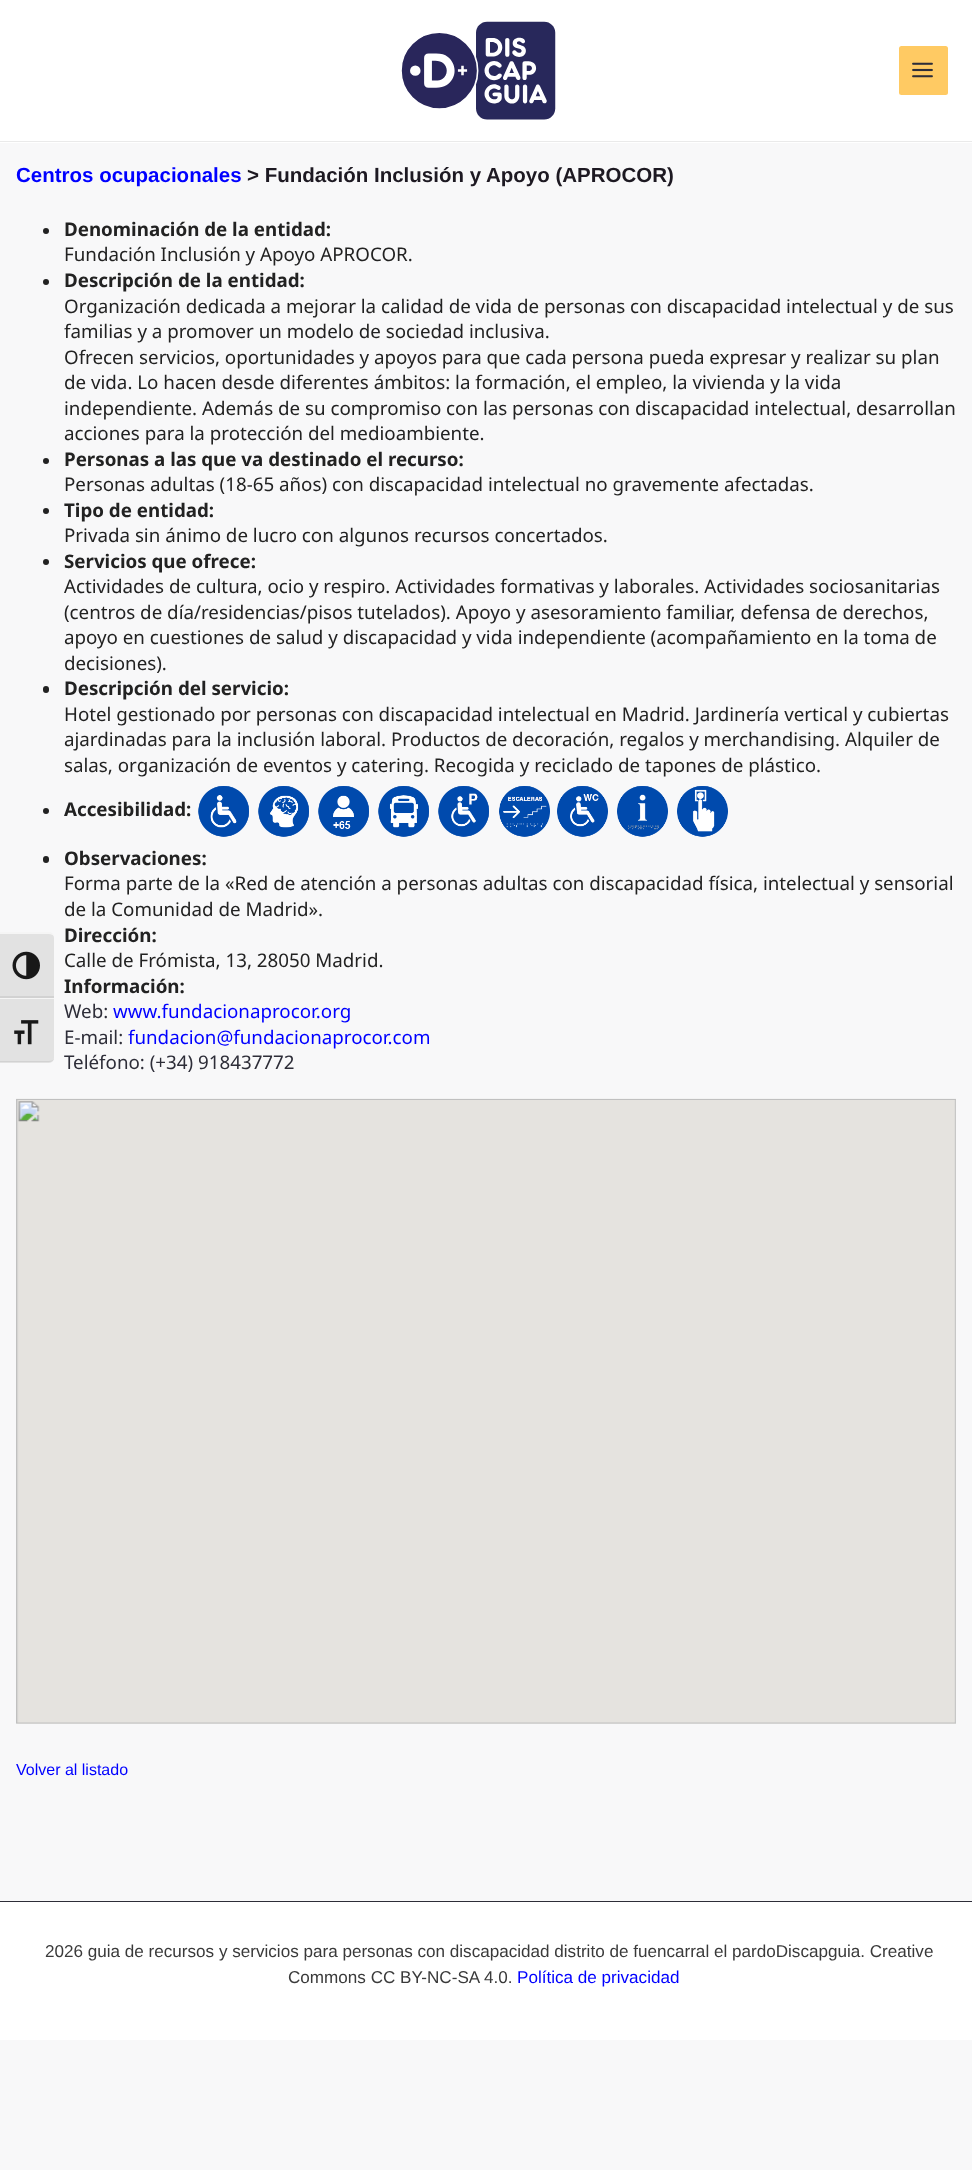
<!DOCTYPE html>
<meta charset="utf-8">
<style>body { margin: 0 } canvas { display: block }</style>
<canvas id="canvas" width="972" height="2170"></canvas>
<script type="module">
  const canvas = document.getElementById("canvas");
  const g = canvas.getContext("2d");
  g.miterLimit = 4;
  g.fontKerning = "normal";
  function drawText(s, x, y, [font, color]) {
    g.font = font;
    g.fillStyle = color;
    g.fillText(s, x, y);
  }
  function fillBox(x, y, w, h, color) {
    g.fillStyle = color;
    g.fillRect(x, y, w, h);
  }
  function fillRounded(x, y, w, h, r, color) {
    g.fillStyle = color;
    g.beginPath();
    g.roundRect(x, y, w, h, r);
    g.fill();
  }
  async function drawPicture(src, x, y, w, h) {
    const img = new Image();
    img.src = src;
    await img.decode();
    g.drawImage(img, x, y, w, h);
  }

  const s1 = ["bold 20.5px Liberation Sans", "#0000FF"];
  const s2 = ["bold 20.5px Liberation Sans", "#1D1922"];
  const s3 = ["bold 18.75px Noto Sans", "#222222"];
  const s4 = ["18.75px Noto Sans", "#222222"];
  const s5 = ["18.75px Noto Sans", "#2D2D38"];
  const s6 = ["18.75px Noto Sans", "#0000FF"];
  const s7 = ["16px Liberation Sans", "#0000FF"];
  const s8 = ["17.1px Liberation Sans", "#3A3A3A"];
  const s9 = ["17.1px Liberation Sans", "#0000FF"];

  fillBox(0, 0, 972, 2170, "#F8F8F9");
  fillBox(0, 0, 972, 143, "#FFFFFF");
  fillBox(0, 141, 972, 1, "#EAEAEA");
  await drawPicture("pic1.png", 401, 21, 155, 99);
  fillRounded(899, 46, 49, 49, 2.5, "#FFCA63");
  await drawPicture("pic2.png", 912, 62, 21, 16);
  drawText("Centros ocupacionales", 16, 182, s1);
  drawText("> Fundación Inclusión y Apoyo (APROCOR)", 247, 182, s2);
  g.fillStyle = "#222222";
  g.beginPath();
  g.arc(46, 231, 3, 0, Math.PI * 2);
  g.fill();
  drawText("Denominación de la entidad:", 64, 236, s3);
  drawText("Fundación Inclusión y Apoyo APROCOR.", 64, 261, s4);
  g.beginPath();
  g.arc(46, 282, 3, 0, Math.PI * 2);
  g.fill();
  drawText("Descripción de la entidad:", 64, 287, s3);
  drawText("Organización dedicada a mejorar la calidad de vida de personas con discapacidad intelectual y de sus", 64, 313, s4);
  drawText("familias y a promover un modelo de sociedad inclusiva.", 64, 338, s4);
  drawText("Ofrecen servicios, oportunidades y apoyos para que cada persona pueda expresar y realizar su plan", 64, 364, s4);
  drawText("de vida. Lo hacen desde diferentes ámbitos: la formación, el empleo, la vivienda y la vida", 64, 389, s4);
  drawText("independiente. Además de su compromiso con las personas con discapacidad intelectual, desarrollan", 64, 415, s4);
  drawText("acciones para la protección del medioambiente.", 64, 440, s4);
  g.beginPath();
  g.arc(46, 461, 3, 0, Math.PI * 2);
  g.fill();
  drawText("Personas a las que va destinado el recurso:", 64, 466, s3);
  drawText("Personas adultas (18-65 años) con discapacidad intelectual no gravemente afectadas.", 64, 491, s4);
  g.beginPath();
  g.arc(46, 511, 3, 0, Math.PI * 2);
  g.fill();
  drawText("Tipo de entidad:", 64, 517, s3);
  drawText("Privada sin ánimo de lucro con algunos recursos concertados.", 64, 542, s4);
  g.beginPath();
  g.arc(46, 562, 3, 0, Math.PI * 2);
  g.fill();
  drawText("Servicios que ofrece:", 64, 568, s3);
  drawText("Actividades de cultura, ocio y respiro. Actividades formativas y laborales. Actividades sociosanitarias", 64, 593, s4);
  drawText("(centros de día/residencias/pisos tutelados). Apoyo y asesoramiento familiar, defensa de derechos,", 64, 619, s4);
  drawText("apoyo en cuestiones de salud y discapacidad y vida independiente (acompañamiento en la toma de", 64, 644, s4);
  drawText("decisiones).", 64, 670, s4);
  fillRounded(43, 686, 6, 7, 3, "#222222");
  drawText("Descripción del servicio:", 64, 695, s3);
  drawText("Hotel gestionado por personas con discapacidad intelectual en Madrid. Jardinería vertical y cubiertas", 64, 721, s4);
  drawText("ajardinadas para la inclusión laboral. Productos de decoración, regalos y merchandising. Alquiler de", 64, 746, s4);
  drawText("salas, organización de eventos y catering. Recogida y reciclado de tapones de plástico.", 64, 772, s4);
  g.beginPath();
  g.arc(46, 811, 3, 0, Math.PI * 2);
  g.fill();
  drawText("Accesibilidad:", 64, 816, s3);
  await drawPicture("pic3.png", 198, 786, 51, 51);
  await drawPicture("pic4.png", 258, 786, 51, 51);
  await drawPicture("pic5.png", 318, 786, 51, 51);
  await drawPicture("pic6.png", 378, 786, 51, 51);
  await drawPicture("pic7.png", 438, 786, 51, 51);
  await drawPicture("pic8.png", 499, 786, 51, 51);
  await drawPicture("pic9.png", 557, 786, 51, 51);
  await drawPicture("pic10.png", 617, 786, 51, 51);
  await drawPicture("pic11.png", 677, 786, 51, 51);
  fillRounded(43, 856, 6, 7, 3, "#222222");
  drawText("Observaciones:", 64, 865, s3);
  drawText("Forma parte de la «Red de atención a personas adultas con discapacidad física, intelectual y sensorial", 64, 890, s4);
  drawText("de la Comunidad de Madrid».", 64, 916, s4);
  drawText("Dirección:", 64, 942, s3);
  drawText("Calle de Frómista, 13, 28050 Madrid.", 64, 967, s4);
  drawText("Información:", 64, 993, s3);
  drawText("Web:", 64, 1018, s5);
  drawText("www.fundacionaprocor.org", 113, 1018, s6);
  drawText("E-mail:", 64, 1044, s5);
  drawText("fundacion@fundacionaprocor.com", 128, 1044, s6);
  drawText("Teléfono: (+34) 918437772", 64, 1069, s5);
  await drawPicture("pic12.png", 16, 1098, 940, 626);
  drawText("Volver al listado", 16, 1775, s7);
  fillBox(0, 1902, 972, 138, "#FFFFFF");
  fillBox(0, 1901, 972, 1, "#2D2D38");
  drawText("2026 guia de recursos y servicios para personas con discapacidad distrito de fuencarral el pardoDiscapguia. Creative", 45, 1957, s8);
  drawText("Commons CC BY-NC-SA 4.0.", 288, 1983, s8);
  drawText("Política de privacidad", 517, 1983, s9);
  g.fillStyle = "#E2E2E2";
  g.beginPath();
  g.roundRect(0, 933, 54, 65, [0, 5, 0, 0]);
  g.fill();
  g.fillStyle = "#F5F5F5";
  g.beginPath();
  g.moveTo(0, 934);
  g.lineTo(49, 934);
  g.bezierCurveTo(51, 934, 53, 935, 54, 936);
  g.bezierCurveTo(54, 935, 52, 933, 51, 932);
  g.lineTo(0, 932);
  g.closePath();
  g.fill();
  fillBox(0, 996, 54, 2, "#D2D2D2");
  await drawPicture("pic13.png", 12, 951, 28, 29);
  g.fillStyle = "#E2E2E2";
  g.beginPath();
  g.roundRect(0, 998, 54, 65, [0, 0, 5, 0]);
  g.fill();
  fillBox(0, 998, 54, 1, "#F5F5F5");
  g.fillStyle = "#D2D2D2";
  g.beginPath();
  g.moveTo(0, 1061);
  g.lineTo(0, 1062);
  g.lineTo(49, 1062);
  g.bezierCurveTo(51, 1062, 53, 1061, 54, 1059);
  g.bezierCurveTo(53, 1060, 51, 1061, 49, 1061);
  g.closePath();
  g.fill();
  await drawPicture("pic14.png", 14, 1020, 25, 25);
</script>
